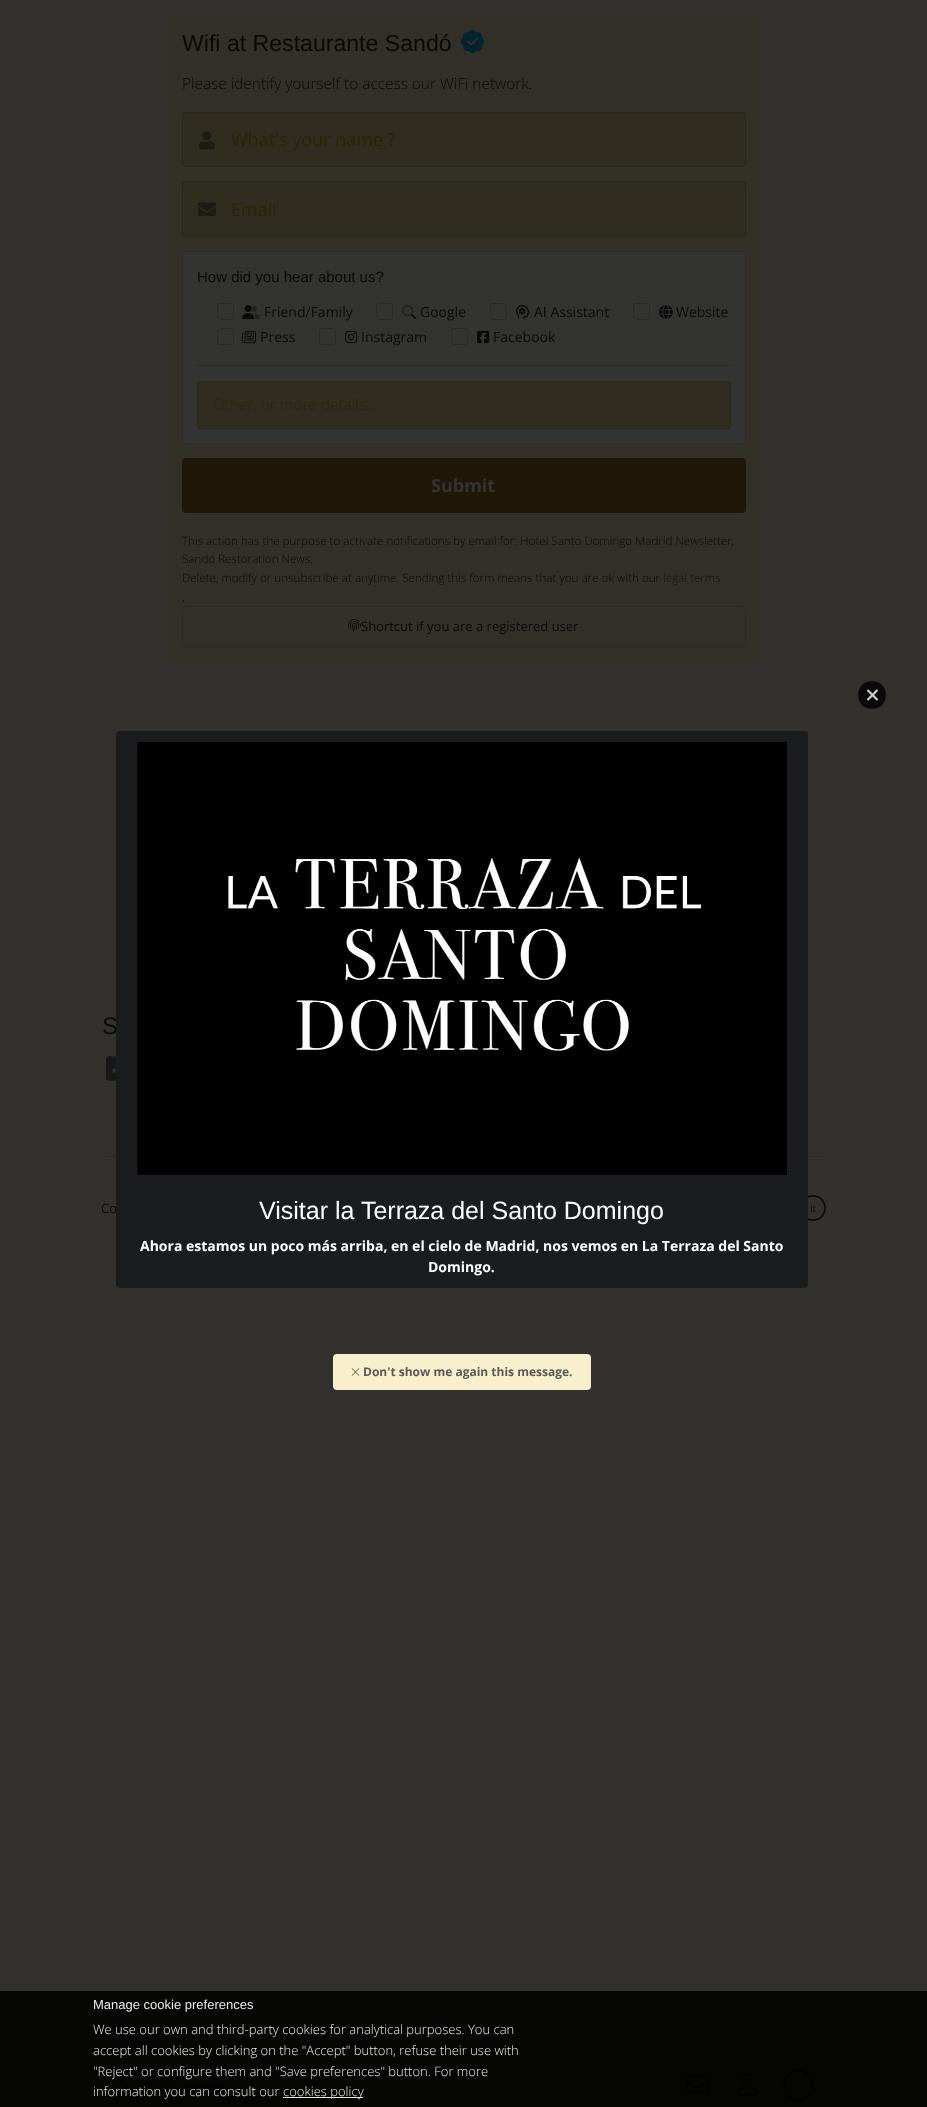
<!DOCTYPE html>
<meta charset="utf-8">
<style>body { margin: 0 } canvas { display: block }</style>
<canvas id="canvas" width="927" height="2107"></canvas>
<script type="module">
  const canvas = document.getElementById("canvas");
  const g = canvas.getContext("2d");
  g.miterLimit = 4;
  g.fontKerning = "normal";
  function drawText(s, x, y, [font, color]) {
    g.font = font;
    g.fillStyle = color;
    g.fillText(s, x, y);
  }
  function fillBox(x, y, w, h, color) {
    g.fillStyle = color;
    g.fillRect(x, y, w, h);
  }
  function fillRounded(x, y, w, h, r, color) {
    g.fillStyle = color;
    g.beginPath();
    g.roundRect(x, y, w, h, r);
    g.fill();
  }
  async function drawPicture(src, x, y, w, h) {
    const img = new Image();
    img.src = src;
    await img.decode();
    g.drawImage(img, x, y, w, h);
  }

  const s1 = ["23.1px Liberation Sans", "#0A0A0A"];
  const s2 = ["300 15.4px Open Sans", "#0A0A0A"];
  const s3 = ["18px Open Sans", "#2C2406"];
  const s4 = ["15px Liberation Sans", "#0A0A0A"];
  const s5 = ["14px Open Sans", "#0A0A0A"];
  const s6 = ["300 15.4px Open Sans", "#2C2406"];
  const s7 = ["bold 18px Open Sans", "#333333"];
  const s8 = ["300 11.65px Open Sans", "#0A0A0A"];
  const s9 = ["300 11.65px Open Sans", "#121212"];
  const s10 = ["13px Open Sans", "#0A0A0A"];
  const s11 = ["24px Liberation Sans", "#0A0A0A"];
  const s12 = ["10px Open Sans", "#0A0A0A"];
  const s13 = ["25px Liberation Sans", "#FFFFFF"];
  const s14 = ["bold 14px Open Sans", "#FFFFFF"];
  const s15 = ["bold 12px Open Sans", "#595959"];
  const s16 = ["13px Liberation Sans", "#EBEAEA"];
  const s17 = ["300 13px Open Sans", "#EBEAEA"];

  fillBox(0, 0, 927, 2107, "#32312D");
  fillBox(0, 1991, 927, 116, "#050504");
  fillRounded(164, 14, 600, 650, 4, "#323029");
  drawText("Wifi at Restaurante Sandó", 182, 51, s1);
  await drawPicture("pic1.png", 460, 30, 24, 24);
  drawText("Please identify yourself to access our WiFi network.", 182, 89, s2);
  fillRounded(182, 112, 564, 55, 4, "#302D20");
  g.beginPath();
  g.roundRect(182.5, 112.5, 563, 54, 3.5);
  g.strokeStyle = "rgba(7, 7, 8, 0.15)";
  g.stroke();
  await drawPicture("pic2.png", 199, 131, 16, 19);
  drawText("What's your name ?", 231, 146, s3);
  g.beginPath();
  g.roundRect(627.5, 181.5, 118, 39, 3.5);
  g.strokeStyle = "#2B2A24";
  g.stroke();
  fillRounded(182, 181, 564, 56, 4, "#302D20");
  g.beginPath();
  g.roundRect(182.5, 181.5, 563, 55, 3.5);
  g.strokeStyle = "rgba(7, 7, 8, 0.15)";
  g.stroke();
  await drawPicture("pic3.png", 198, 202, 18, 14);
  drawText("Email", 231, 216, s3);
  fillRounded(182, 251, 564, 193, 4, "#333332");
  g.beginPath();
  g.roundRect(182.5, 251.5, 563, 192, 3.5);
  g.stroke();
  drawText("How did you hear about us?", 197, 282, s4);
  g.beginPath();
  g.roundRect(217.5, 303.5, 16, 16, 2.5);
  g.strokeStyle = "#2A2A2B";
  g.stroke();
  await drawPicture("pic4.png", 242, 305, 18, 14);
  drawText("Friend/Family", 264, 317, s5);
  g.beginPath();
  g.roundRect(376.5, 303.5, 16, 16, 2.5);
  g.stroke();
  await drawPicture("pic5.png", 402, 305, 14, 14);
  drawText("Google", 420, 317, s5);
  g.beginPath();
  g.roundRect(490.5, 303.5, 16, 16, 2.5);
  g.stroke();
  await drawPicture("pic6.png", 516, 305, 14, 14);
  drawText("AI Assistant", 534, 317, s5);
  g.beginPath();
  g.roundRect(633.5, 303.5, 16, 16, 2.5);
  g.stroke();
  await drawPicture("pic7.png", 659, 305, 14, 14);
  drawText("Website", 676, 317, s5);
  g.beginPath();
  g.roundRect(217.5, 328.5, 16, 16, 2.5);
  g.stroke();
  await drawPicture("pic8.png", 242, 330, 14, 14);
  drawText("Press", 260, 342, s5);
  g.beginPath();
  g.roundRect(319.5, 328.5, 16, 16, 2.5);
  g.stroke();
  await drawPicture("pic9.png", 345, 330, 13, 14);
  drawText("Instagram", 361, 342, s5);
  g.beginPath();
  g.roundRect(451.5, 328.5, 16, 16, 2.5);
  g.stroke();
  await drawPicture("pic10.png", 477, 330, 13, 14);
  drawText("Facebook", 493, 342, s5);
  fillBox(197, 365, 534, 1, "#2C2C2B");
  fillRounded(197, 381, 534, 48, 4, "#302D20");
  g.beginPath();
  g.roundRect(197.5, 381.5, 533, 47, 3.5);
  g.strokeStyle = "rgba(7, 7, 8, 0.15)";
  g.stroke();
  drawText("Other, or more details...", 213, 410, s6);
  fillRounded(182, 458, 564, 55, 4, "#1F1808");
  drawText("Submit", 431, 492, s7);
  drawText("This action has the purpose to activate notifications by email for: Hotel Santo Domingo Madrid Newsletter,", 182, 545, s8);
  drawText("Sandó Restoration News.", 182, 563, s8);
  drawText("Delete, modify or unsubscribe at anytime. Sending this form means that you are ok with our", 182, 582, s8);
  drawText("legal terms", 663, 582, s9);
  drawText(".", 182, 601, s8);
  g.beginPath();
  g.roundRect(182.5, 606.5, 563, 39, 3.5);
  g.strokeStyle = "#2B2A24";
  g.stroke();
  await drawPicture("pic11.png", 348, 619, 13, 13);
  drawText("Shortcut if you are a registered user", 361, 631, s10);
  drawText("S", 102, 1034, s11);
  await drawPicture("pic12.png", 106, 1056, 10, 25);
  fillBox(102, 1156, 723, 1, "#2C2B28");
  drawText("Co", 101, 1213, s10);
  await drawPicture("pic13.png", 808, 1195, 18, 26);
  drawText("it", 810, 1212, s12);
  g.fillStyle = "rgba(0, 0, 0, 0.8)";
  g.beginPath();
  g.moveTo(872, 709);
  g.bezierCurveTo(890.5, 709, 890.5, 681, 872, 681);
  g.bezierCurveTo(853.5, 681, 853.5, 709, 872, 709);
  g.closePath();
  g.fill();
  await drawPicture("pic14.png", 867, 689, 11, 12);
  fillRounded(116, 731, 692, 557, 4, "#1B1C1D");
  await drawPicture("pic15.png", 137, 742, 650, 433);
  drawText("Visitar la Terraza del Santo Domingo", 259, 1219, s13);
  drawText("Ahora estamos un poco más arriba, en el cielo de Madrid, nos vemos en La Terraza del Santo", 140, 1251, s14);
  drawText("Domingo.", 428, 1272, s14);
  fillRounded(333, 1354, 258, 36, 4, "#F8EFCC");
  await drawPicture("pic16.png", 351, 1368, 9, 8);
  drawText("Don't show me again this message.", 363, 1376, s15);
  drawText("Manage cookie preferences", 93, 2009, s16);
  drawText("We use our own and third-party cookies for analytical purposes. You can", 93, 2034, s17);
  drawText("accept all cookies by clicking on the \"Accept\" button, refuse their use with", 93, 2055, s17);
  await drawPicture("pic17.png", 112, 2076, 113, 18);
  drawText("\"Reject\" or configure them and \"Save preferences\" button. For more", 93, 2076, s17);
  drawText("information you can consult our", 93, 2096, s17);
  fillBox(283, 2097, 80, 1, "#EBEAEA");
  drawText("cookies policy", 283, 2096, s17);
  await drawPicture("pic18.png", 685, 2075, 24, 19);
  await drawPicture("pic19.png", 737, 2073, 21, 24);
  await drawPicture("pic20.png", 783, 2070, 31, 31);
</script>
